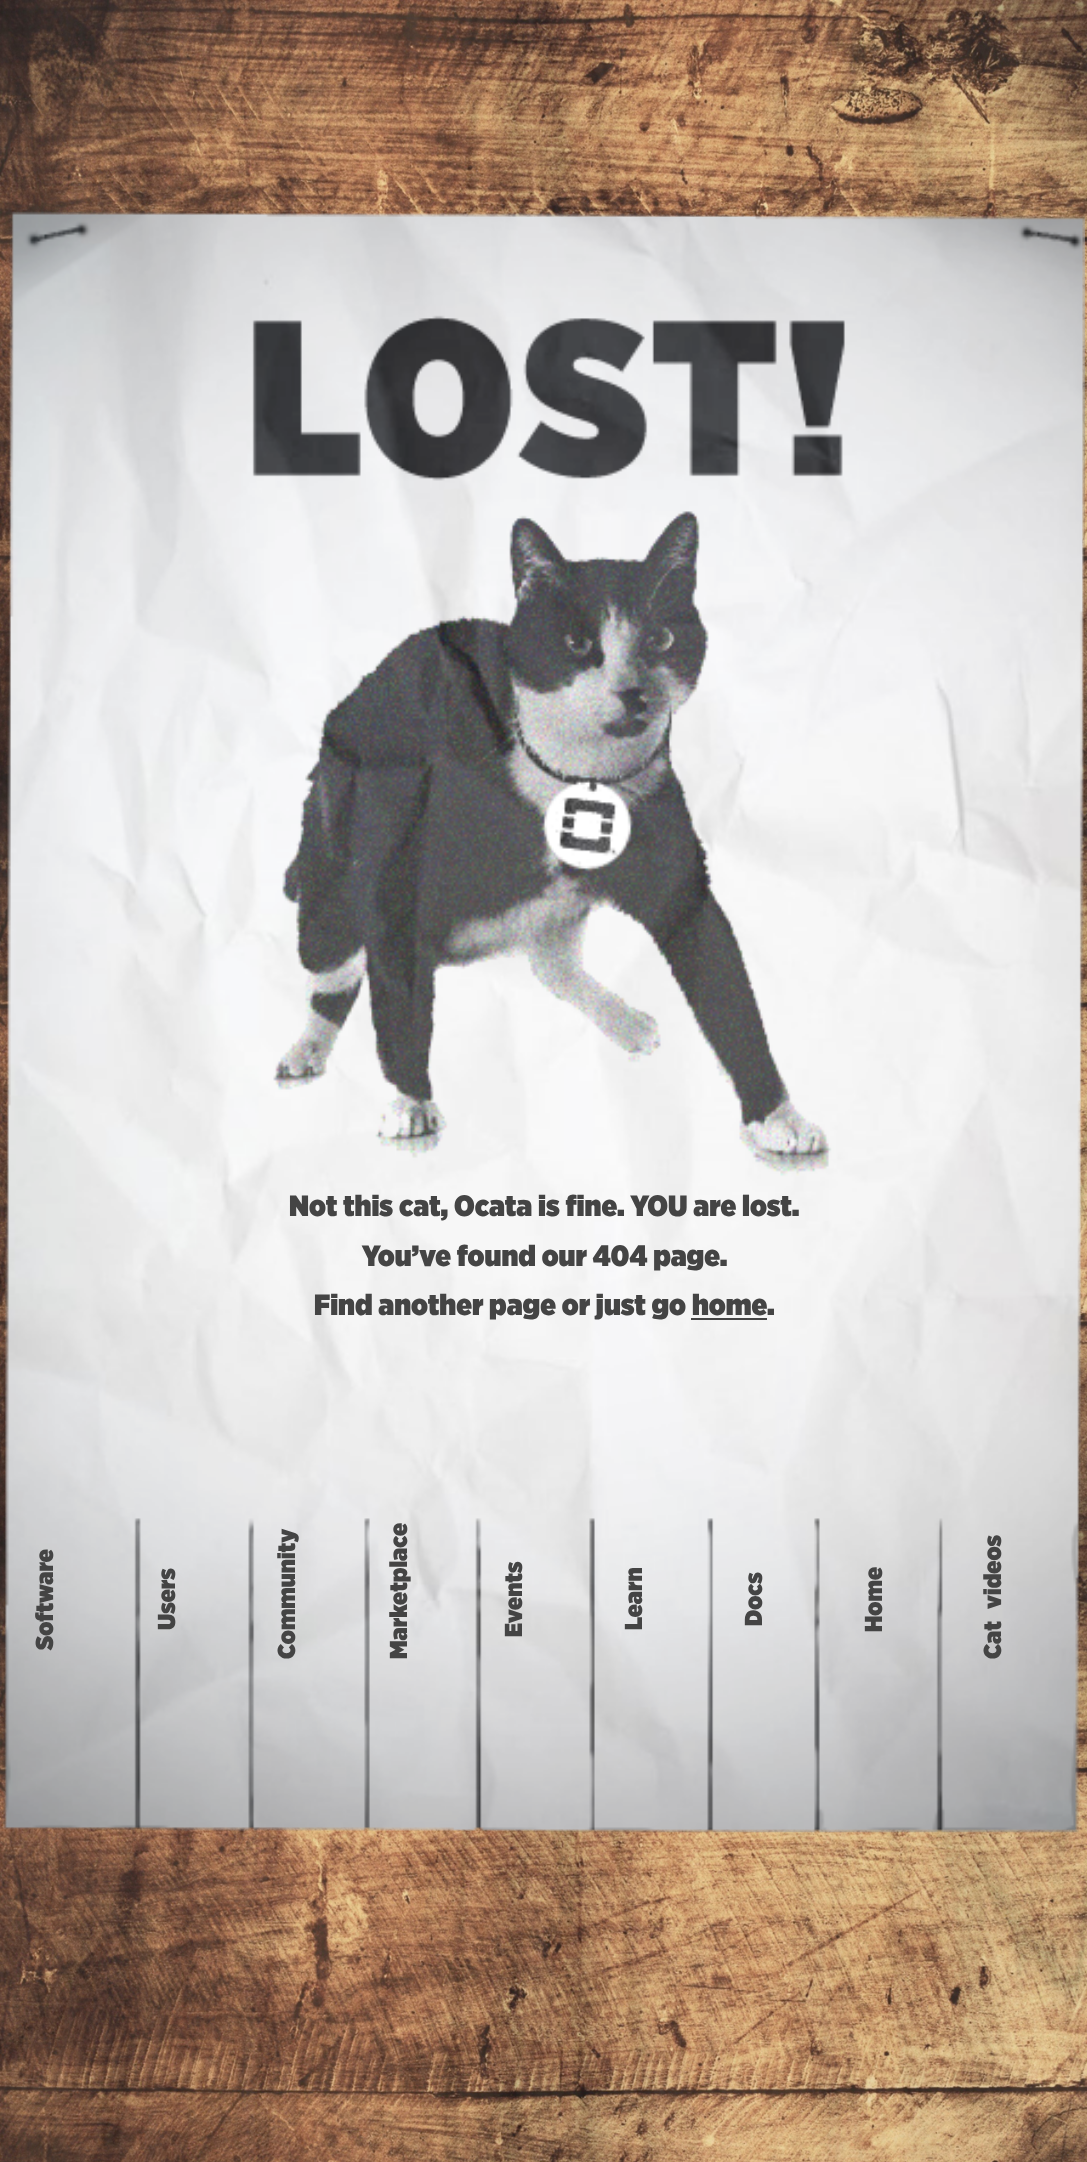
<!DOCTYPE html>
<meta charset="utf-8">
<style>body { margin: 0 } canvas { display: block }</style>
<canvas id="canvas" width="1087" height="2162"></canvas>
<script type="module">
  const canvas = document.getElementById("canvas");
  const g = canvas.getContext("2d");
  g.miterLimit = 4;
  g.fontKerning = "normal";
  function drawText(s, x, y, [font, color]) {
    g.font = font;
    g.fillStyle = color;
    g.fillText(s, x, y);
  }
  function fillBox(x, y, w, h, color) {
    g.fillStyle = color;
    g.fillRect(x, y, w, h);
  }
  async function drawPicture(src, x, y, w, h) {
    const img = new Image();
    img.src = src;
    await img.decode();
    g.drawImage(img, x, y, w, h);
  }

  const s1 = ["500 29.4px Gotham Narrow", "#444444"];

  fillBox(0, 0, 1087, 2162, "#FFFFFF");
  await drawPicture("pic1.png", 0, 0, 1087, 2162);
  await drawPicture("pic2.png", 3, 211, 1082, 1622);
  drawText("Not this cat, Ocata is fine. YOU are lost.", 289, 1216, s1);
  drawText("You’ve found our 404 page.", 362, 1266, s1);
  drawText("Find another page or just go", 314, 1315, s1);
  drawText("home.", 692, 1315, s1);
  fillBox(691, 1318, 76, 2, "#444444");
  g.font = "500 24.5px Gotham Narrow";
  g.save();
  g.translate(53, 1650);
  g.rotate(-90 * Math.PI / 180);
  g.fillText("Software", 0, 0);
  g.restore();
  g.save();
  g.translate(175, 1630);
  g.rotate(-90 * Math.PI / 180);
  g.fillText("Users", 0, 0);
  g.restore();
  g.save();
  g.translate(295, 1659);
  g.rotate(-90 * Math.PI / 180);
  g.fillText("Community", 0, 0);
  g.restore();
  g.save();
  g.translate(407, 1659);
  g.rotate(-90 * Math.PI / 180);
  g.fillText("Marketplace", 0, 0);
  g.restore();
  g.save();
  g.translate(522, 1637);
  g.rotate(-90 * Math.PI / 180);
  g.fillText("Events", 0, 0);
  g.restore();
  g.save();
  g.translate(642, 1630);
  g.rotate(-90 * Math.PI / 180);
  g.fillText("Learn", 0, 0);
  g.restore();
  g.save();
  g.translate(762, 1626);
  g.rotate(-90 * Math.PI / 180);
  g.fillText("Docs", 0, 0);
  g.restore();
  g.save();
  g.translate(882, 1632);
  g.rotate(-90 * Math.PI / 180);
  g.fillText("Home", 0, 0);
  g.restore();
  g.save();
  g.translate(1001, 1609);
  g.rotate(-90 * Math.PI / 180);
  g.fillText("videos", 0, 0);
  g.restore();
  g.save();
  g.translate(1001, 1659);
  g.rotate(-90 * Math.PI / 180);
  g.fillText("Cat", 0, 0);
  g.restore();
</script>
